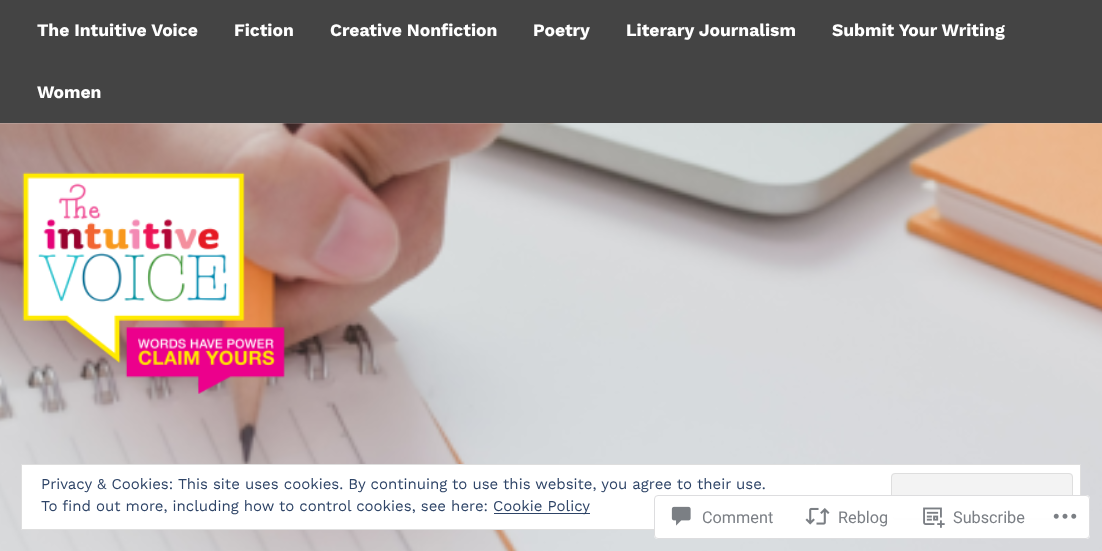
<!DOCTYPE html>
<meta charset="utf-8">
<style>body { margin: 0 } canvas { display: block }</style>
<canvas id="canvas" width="1102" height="551"></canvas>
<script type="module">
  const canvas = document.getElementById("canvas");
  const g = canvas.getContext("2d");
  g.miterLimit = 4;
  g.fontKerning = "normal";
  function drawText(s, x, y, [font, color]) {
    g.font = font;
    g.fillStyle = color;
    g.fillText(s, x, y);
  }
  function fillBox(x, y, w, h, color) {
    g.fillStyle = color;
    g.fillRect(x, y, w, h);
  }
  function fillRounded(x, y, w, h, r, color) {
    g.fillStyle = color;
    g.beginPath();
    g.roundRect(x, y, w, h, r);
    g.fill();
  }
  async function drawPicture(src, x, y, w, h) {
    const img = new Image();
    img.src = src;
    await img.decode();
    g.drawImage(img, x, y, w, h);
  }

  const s1 = ["bold 17.5px Work Sans", "#FFFFFF"];
  const s2 = ["15px Work Sans", "#2E4467"];
  const s3 = ["16.25px Roboto", "#7B7F85"];

  fillBox(0, 0, 1102, 551, "#FFFFFF");
  fillBox(0, 0, 1102, 123, "#444444");
  drawText("The Intuitive Voice", 37, 36, s1);
  drawText("Fiction", 234, 36, s1);
  drawText("Creative Nonfiction", 330, 36, s1);
  drawText("Poetry", 533, 36, s1);
  drawText("Literary Journalism", 626, 36, s1);
  drawText("Submit Your Writing", 832, 36, s1);
  drawText("Women", 37, 98, s1);
  await drawPicture("pic1.png", 0, 123, 1102, 428);
  await drawPicture("pic2.png", 22, 172, 263, 222);
  g.beginPath();
  g.rect(21.5, 464.5, 1059, 65);
  g.fill();
  g.strokeStyle = "#DEDEDE";
  g.stroke();
  drawText("Privacy & Cookies: This site uses cookies. By continuing to use this website, you agree to their use.", 41, 489, s2);
  fillRounded(891, 473, 182, 48, 4, "#F3F3F3");
  g.fillStyle = "#C2C2C2";
  g.beginPath();
  g.moveTo(893, 517);
  g.lineTo(893, 518);
  g.bezierCurveTo(893, 519, 894, 520, 896, 520);
  g.lineTo(1068, 520);
  g.bezierCurveTo(1070, 520, 1071, 519, 1071, 518);
  g.lineTo(1071, 515);
  g.bezierCurveTo(1071, 516, 1070, 518, 1069, 518);
  g.lineTo(895, 518);
  g.closePath();
  g.fill();
  g.beginPath();
  g.roundRect(891.5, 473.5, 181, 47, 3.5);
  g.stroke();
  drawText("To find out more, including how to control cookies, see here:", 41, 511, s2);
  fillBox(494, 513, 96, 1, "#2E4467");
  drawText("Cookie Policy", 493, 511, s2);
  fillRounded(654, 495, 436, 44, 4, "rgba(255, 255, 255, 0.98)");
  g.beginPath();
  g.roundRect(654.5, 495.5, 435, 43, 3.5);
  g.strokeStyle = "rgba(220, 220, 222, 0.98)";
  g.stroke();
  await drawPicture("pic3.png", 671, 506, 20, 20);
  drawText("Comment", 702, 523, s3);
  await drawPicture("pic4.png", 805, 507, 25, 18);
  drawText("Reblog", 838, 523, s3);
  await drawPicture("pic5.png", 923, 507, 22, 21);
  drawText("Subscribe", 953, 523, s3);
  await drawPicture("pic6.png", 1053, 513, 24, 6);
</script>
